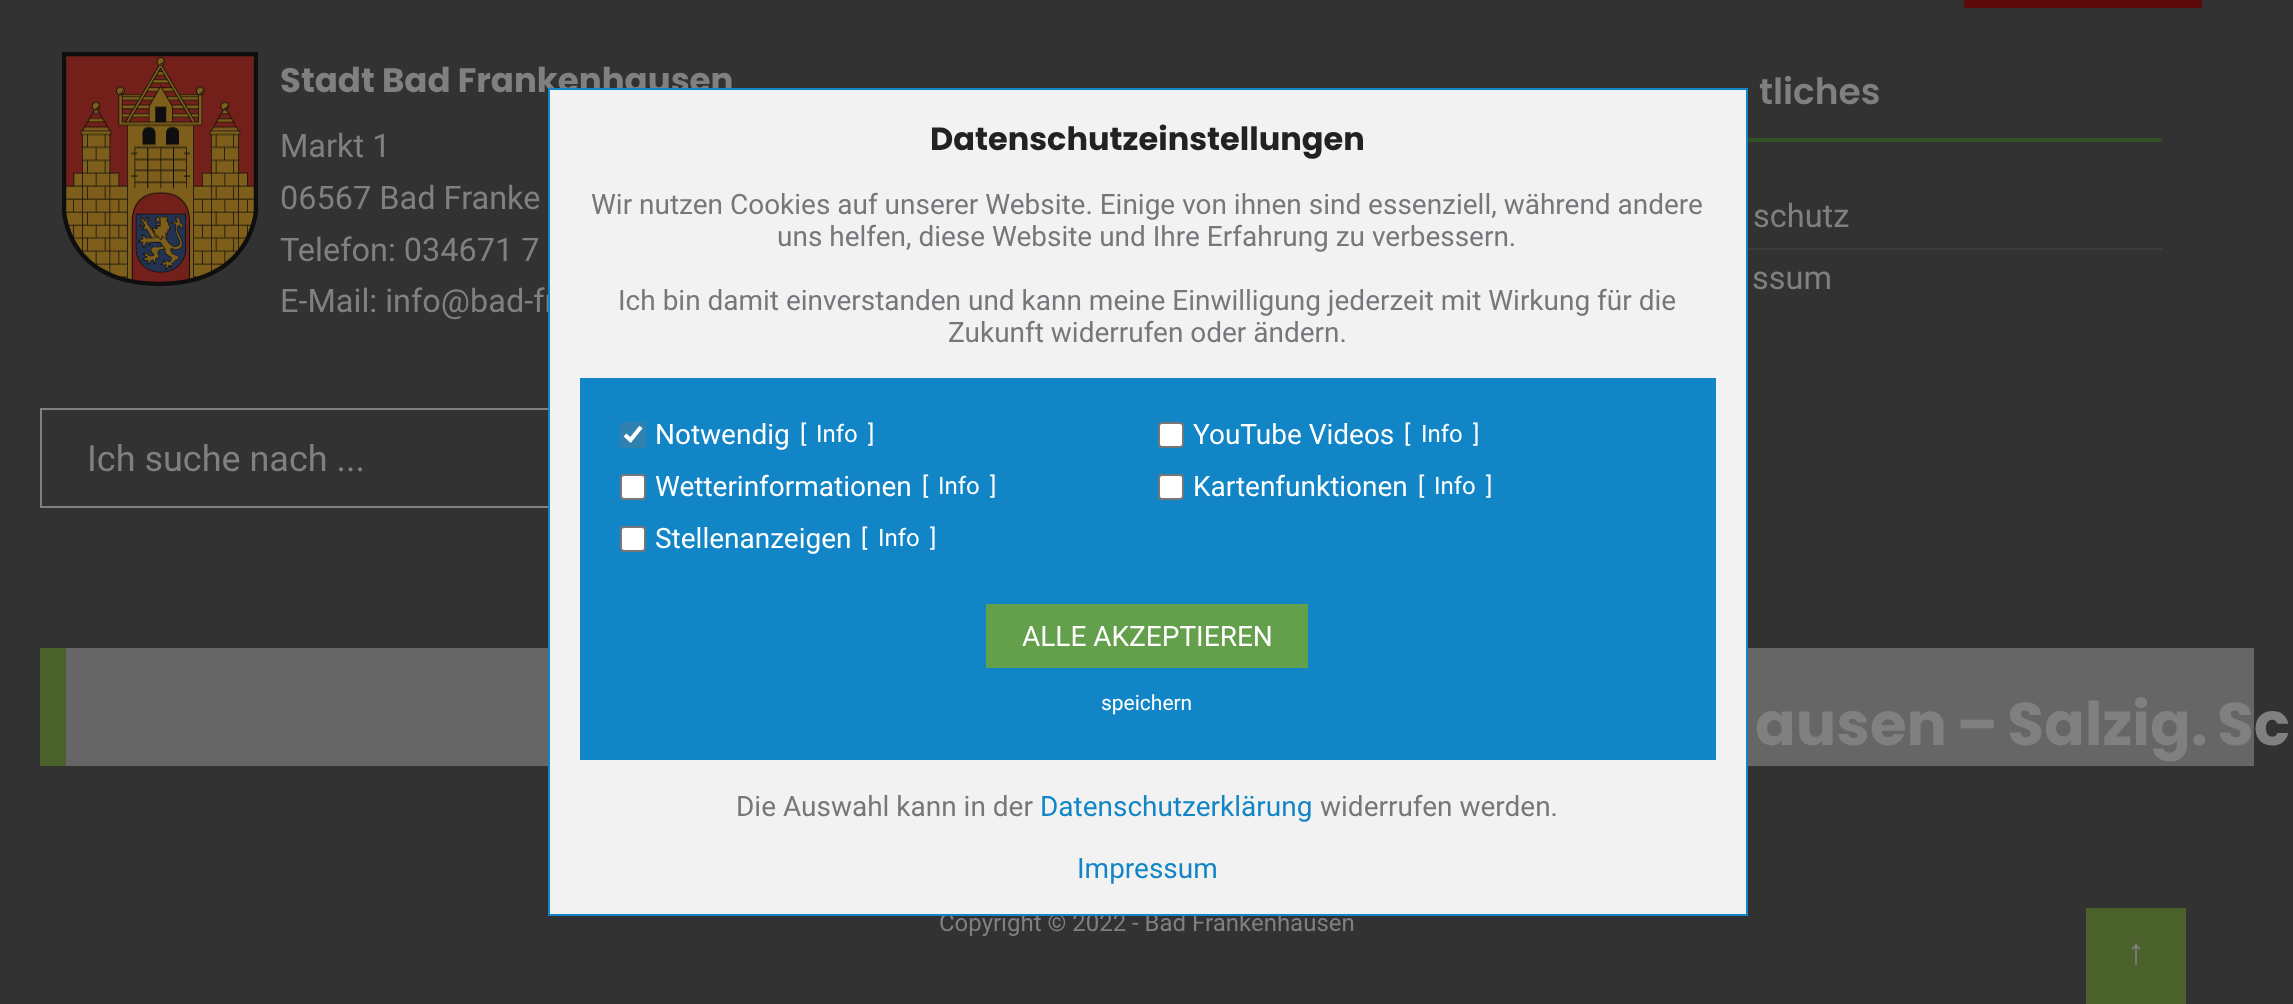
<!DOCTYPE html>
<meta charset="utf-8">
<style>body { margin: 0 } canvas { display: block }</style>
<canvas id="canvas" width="2293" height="1004"></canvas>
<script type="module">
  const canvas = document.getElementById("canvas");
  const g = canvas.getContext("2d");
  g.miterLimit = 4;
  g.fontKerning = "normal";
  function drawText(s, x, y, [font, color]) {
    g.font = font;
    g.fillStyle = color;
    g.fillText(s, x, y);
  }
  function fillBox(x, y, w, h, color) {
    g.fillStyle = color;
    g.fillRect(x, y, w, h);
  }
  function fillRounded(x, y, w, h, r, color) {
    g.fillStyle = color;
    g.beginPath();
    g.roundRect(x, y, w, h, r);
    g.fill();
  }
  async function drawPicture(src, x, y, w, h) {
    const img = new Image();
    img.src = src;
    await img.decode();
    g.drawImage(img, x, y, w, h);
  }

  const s1 = ["bold 34px Poppins", "#808080"];
  const s2 = ["32.5px Roboto", "#808080"];
  const s3 = ["36px Roboto", "#808080"];
  const s4 = ["600 36px Poppins", "#808080"];
  const s5 = ["bold 60px Poppins", "#808080"];
  const s6 = ["24px Roboto", "#808080"];
  const s7 = ["36px Liberation Sans", "#808080"];
  const s8 = ["bold 32px Poppins", "#222222"];
  const s9 = ["28px Roboto", "#76777B"];
  const s10 = ["28px Roboto", "#FFFFFF"];
  const s11 = ["24px Roboto", "#FFFFFF"];
  const s12 = ["21px Roboto", "#FFFFFF"];
  const s13 = ["28px Roboto", "#1285C7"];

  fillBox(0, 0, 2293, 1004, "#323232");
  await drawPicture("pic1.png", 62, 52, 196, 234);
  drawText("Stadt Bad Frankenhausen", 280, 92, s1);
  drawText("Markt 1", 280, 157, s2);
  drawText("06567 Bad Franke", 280, 209, s2);
  drawText("Telefon: 034671 7", 280, 261, s2);
  drawText("E-Mail: info@bad-fr", 280, 312, s2);
  g.strokeStyle = "#808080";
  g.lineWidth = 2;
  g.strokeRect(41, 409, 894, 98);
  drawText("Ich suche nach ...", 87, 471, s3);
  fillBox(1964, 0, 238, 8, "#5C0A0A");
  drawText("tliches", 1759, 104, s4);
  fillRounded(1744, 138, 418, 4, 2, "#325026");
  drawText("schutz", 1753, 227, s2);
  fillBox(1748, 248, 414, 2, "#3C3C3C");
  drawText("ssum", 1752, 289, s2);
  fillBox(66, 648, 2188, 118, "#666666");
  fillBox(40, 648, 26, 118, "#4A612C");
  g.wordSpacing = "-3.5px";
  drawText("ausen – Salzig. Sc", 1755, 745, s5);
  g.wordSpacing = "0px";
  drawText("Copyright © 2022 - Bad Frankenhausen", 939, 931, s6);
  fillBox(2086, 908, 100, 96, "#4A612C");
  drawText("↑", 2127, 964, s7);
  g.strokeStyle = "#1285C7";
  g.strokeRect(549, 89, 1198, 826);
  fillBox(550, 90, 1196, 824, "#F2F2F2");
  drawText("Datenschutzeinstellungen", 930, 150, s8);
  drawText("Wir nutzen Cookies auf unserer Website. Einige von ihnen sind essenziell, während andere", 591, 214, s9);
  drawText("uns helfen, diese Website und Ihre Erfahrung zu verbessern.", 777, 246, s9);
  drawText("Ich bin damit einverstanden und kann meine Einwilligung jederzeit mit Wirkung für die", 618, 310, s9);
  drawText("Zukunft widerrufen oder ändern.", 948, 342, s9);
  fillBox(580, 378, 1136, 382, "#1285C7");
  fillRounded(620, 422, 26, 26, 4, "#3081AF");
  g.beginPath();
  g.moveTo(625, 435);
  g.lineTo(630.5, 440);
  g.lineTo(641, 427);
  g.strokeStyle = "#FFFFFF";
  g.lineWidth = 4.2;
  g.stroke();
  drawText("Notwendig", 655, 444, s10);
  drawText("[", 800, 442, s11);
  drawText("Info", 816, 442, s11);
  drawText("]", 868, 442, s11);
  g.beginPath();
  g.roundRect(1159, 423, 24, 24, 3);
  g.fill();
  g.strokeStyle = "#767676";
  g.lineWidth = 2;
  g.stroke();
  drawText("YouTube Videos", 1193, 444, s10);
  drawText("[", 1404, 442, s11);
  drawText("Info", 1421, 442, s11);
  drawText("]", 1473, 442, s11);
  g.beginPath();
  g.roundRect(621, 475, 24, 24, 3);
  g.fill();
  g.stroke();
  drawText("Wetterinformationen", 655, 496, s10);
  drawText("[", 922, 494, s11);
  drawText("Info", 938, 494, s11);
  drawText("]", 990, 494, s11);
  g.beginPath();
  g.roundRect(1159, 475, 24, 24, 3);
  g.fill();
  g.stroke();
  drawText("Kartenfunktionen", 1193, 496, s10);
  drawText("[", 1418, 494, s11);
  drawText("Info", 1434, 494, s11);
  drawText("]", 1486, 494, s11);
  g.beginPath();
  g.roundRect(621, 527, 24, 24, 3);
  g.fill();
  g.stroke();
  drawText("Stellenanzeigen", 655, 548, s10);
  drawText("[", 861, 546, s11);
  drawText("Info", 878, 546, s11);
  drawText("]", 930, 546, s11);
  fillBox(986, 604, 322, 64, "#649F4B");
  drawText("ALLE AKZEPTIEREN", 1022, 646, s10);
  drawText("speichern", 1101, 710, s12);
  drawText("Die Auswahl kann in der", 736, 816, s9);
  drawText("Datenschutzerklärung", 1040, 816, s13);
  drawText("widerrufen werden.", 1320, 816, s9);
  drawText("Impressum", 1077, 878, s13);
</script>
